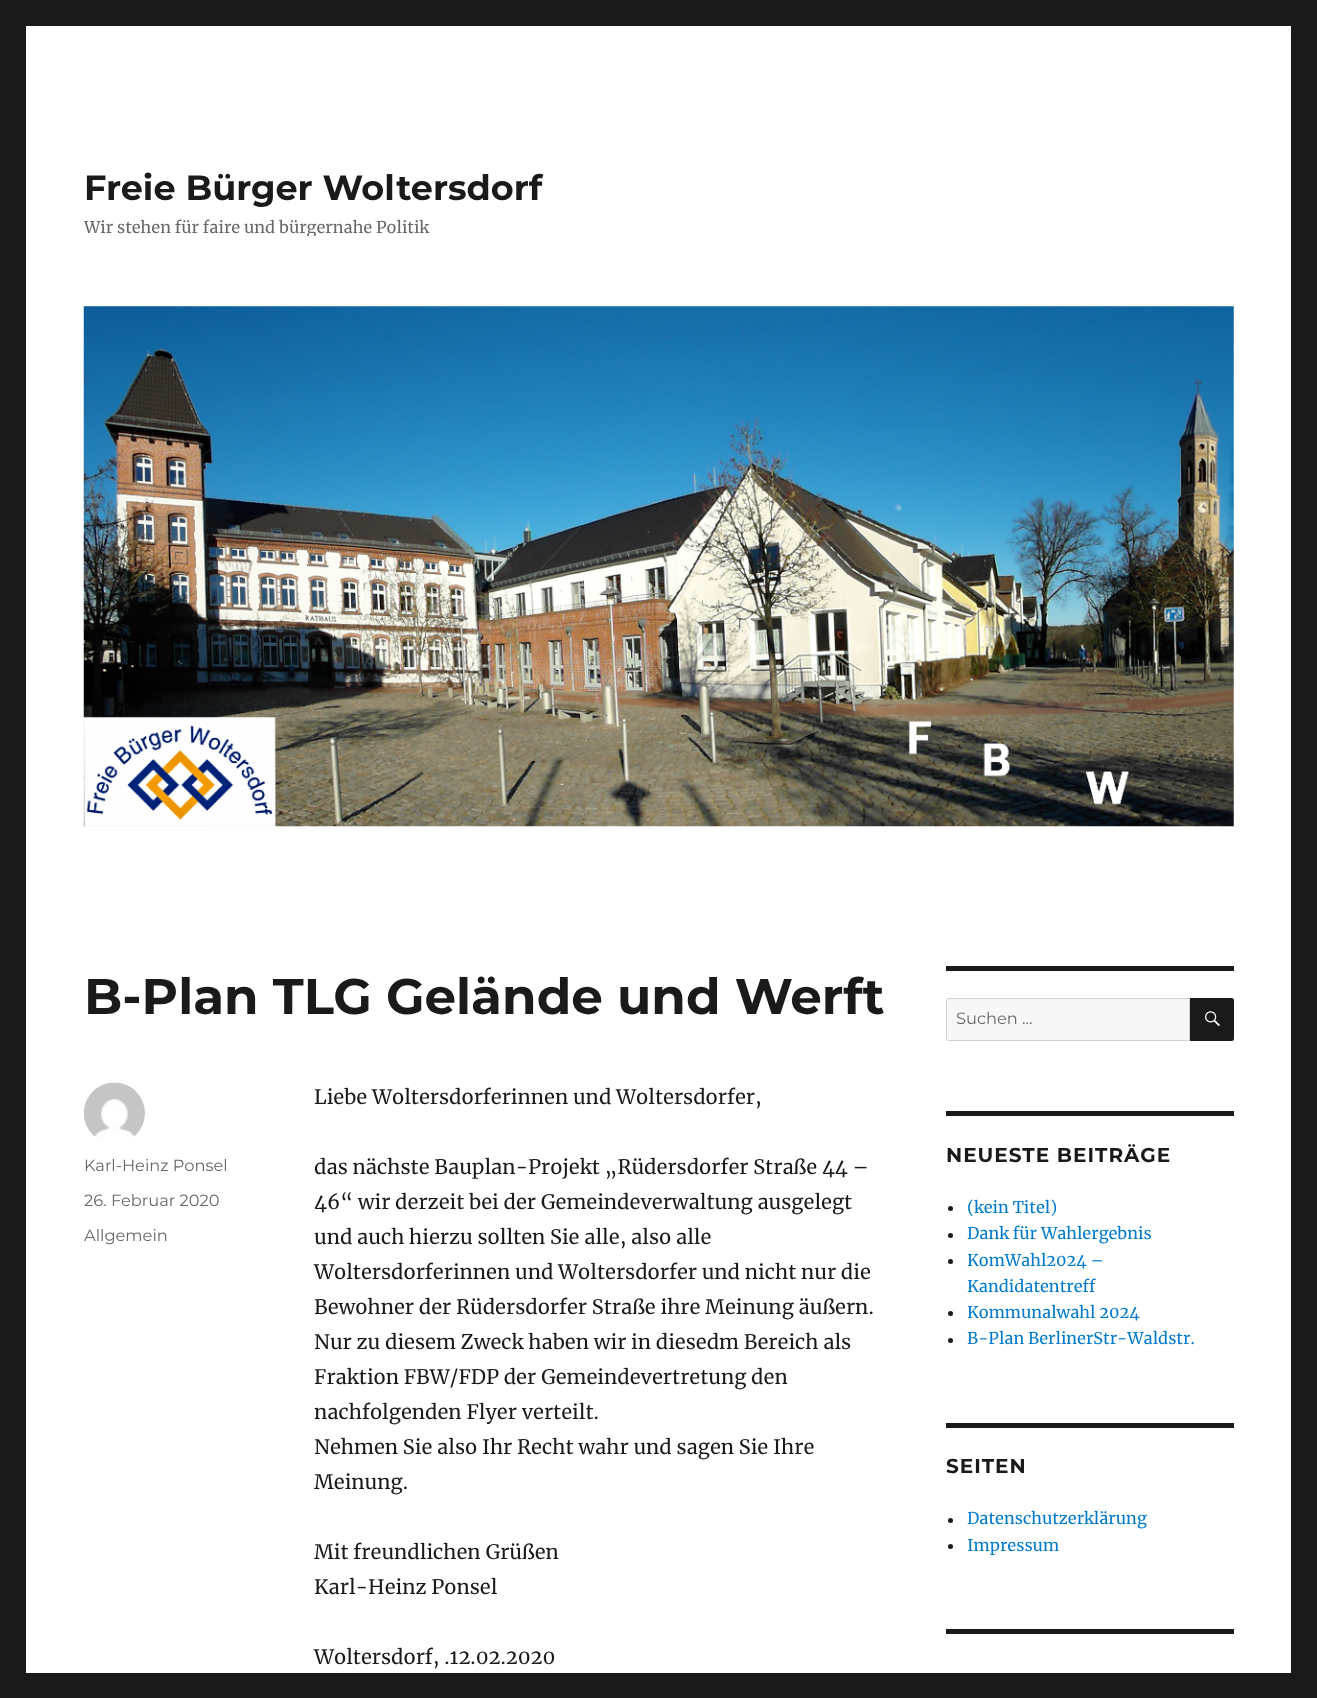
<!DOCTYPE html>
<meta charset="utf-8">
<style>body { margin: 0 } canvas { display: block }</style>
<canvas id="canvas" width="1317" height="1698"></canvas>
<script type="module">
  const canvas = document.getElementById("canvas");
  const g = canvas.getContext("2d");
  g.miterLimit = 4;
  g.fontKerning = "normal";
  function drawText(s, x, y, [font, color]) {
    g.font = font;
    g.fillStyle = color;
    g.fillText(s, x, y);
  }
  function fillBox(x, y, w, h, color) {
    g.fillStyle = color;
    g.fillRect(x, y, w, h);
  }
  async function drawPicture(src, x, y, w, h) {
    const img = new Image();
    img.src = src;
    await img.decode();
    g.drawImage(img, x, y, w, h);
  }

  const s1 = ["100 35px Montserrat", "#1A1A1A"];
  const s2 = ["16.25px Merriweather", "#686868"];
  const s3 = ["100 50px Montserrat", "#1A1A1A"];
  const s4 = ["100 16.25px 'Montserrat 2'", "#686868"];
  const s5 = ["20px Merriweather", "#1A1A1A"];
  const s6 = ["100 20px Montserrat", "#1A1A1A"];
  const s7 = ["16.25px Merriweather", "#007ACC"];

  fillBox(0, 0, 1317, 1698, "#1A1A1A");
  fillBox(26, 26, 1265, 1647, "#FFFFFF");
  drawText("Freie Bürger Woltersdorf", 84, 200, s1);
  g.save();
  g.beginPath();
  g.rect(84, 166, 459, 70);
  g.clip();
  drawText("Wir stehen für faire und bürgernahe Politik", 84, 233, s2);
  g.restore();
  await drawPicture("pic1.png", 83, 306, 1151, 521);
  drawText("B-Plan TLG Gelände und Werft", 84, 1014, s3);
  await drawPicture("pic2.png", 83, 1082, 62, 56);
  drawText("Karl-Heinz Ponsel", 84, 1171, s4);
  drawText("26. Februar 2020", 84, 1206, s4);
  drawText("Allgemein", 84, 1241, s4);
  drawText("Liebe Woltersdorferinnen und Woltersdorfer,", 314, 1104, s5);
  drawText("das nächste Bauplan-Projekt „Rüdersdorfer Straße 44 –", 314, 1174, s5);
  drawText("46“ wir derzeit bei der Gemeindeverwaltung ausgelegt", 314, 1209, s5);
  drawText("und auch hierzu sollten Sie alle, also alle", 314, 1244, s5);
  drawText("Woltersdorferinnen und Woltersdorfer und nicht nur die", 314, 1279, s5);
  drawText("Bewohner der Rüdersdorfer Straße ihre Meinung äußern.", 314, 1314, s5);
  drawText("Nur zu diesem Zweck haben wir in diesedm Bereich als", 314, 1349, s5);
  drawText("Fraktion FBW/FDP der Gemeindevertretung den", 314, 1384, s5);
  drawText("nachfolgenden Flyer verteilt.", 314, 1419, s5);
  drawText("Nehmen Sie also Ihr Recht wahr und sagen Sie Ihre", 314, 1454, s5);
  drawText("Meinung.", 314, 1489, s5);
  drawText("Mit freundlichen Grüßen", 314, 1559, s5);
  drawText("Karl-Heinz Ponsel", 314, 1594, s5);
  drawText("Woltersdorf, .12.02.2020", 314, 1664, s5);
  fillBox(946, 966, 288, 5, "#1A1A1A");
  g.fillStyle = "#F7F7F7";
  g.beginPath();
  g.roundRect(946.5, 998.5, 243, 42, [2, 0, 0, 2]);
  g.fill();
  g.strokeStyle = "#D1D1D1";
  g.stroke();
  drawText("Suchen …", 956, 1024, s4);
  g.fillStyle = "#1A1A1A";
  g.beginPath();
  g.roundRect(1190, 998, 44, 43, [0, 2.5, 2.5, 0]);
  g.fill();
  await drawPicture("pic3.png", 1205, 1011, 15, 16);
  fillBox(946, 1111, 288, 5, "#1A1A1A");
  g.letterSpacing = "1px";
  drawText("NEUESTE BEITRÄGE", 946, 1162, s6);
  g.beginPath();
  g.arc(950.5, 1208.5, 2.5, 0, Math.PI * 2);
  g.fill();
  g.letterSpacing = "0px";
  drawText("(kein Titel)", 967, 1213, s7);
  g.fillStyle = "#1A1A1A";
  g.beginPath();
  g.arc(950.5, 1235.5, 2.5, 0, Math.PI * 2);
  g.fill();
  drawText("Dank für Wahlergebnis", 967, 1239, s7);
  g.fillStyle = "#1A1A1A";
  g.beginPath();
  g.arc(950.5, 1261.5, 2.5, 0, Math.PI * 2);
  g.fill();
  drawText("KomWahl2024 –", 967, 1266, s7);
  drawText("Kandidatentreff", 967, 1292, s7);
  g.fillStyle = "#1A1A1A";
  g.beginPath();
  g.arc(950.5, 1313.5, 2.5, 0, Math.PI * 2);
  g.fill();
  drawText("Kommunalwahl 2024", 967, 1318, s7);
  g.fillStyle = "#1A1A1A";
  g.beginPath();
  g.arc(950.5, 1340.5, 2.5, 0, Math.PI * 2);
  g.fill();
  drawText("B-Plan BerlinerStr-Waldstr.", 967, 1344, s7);
  fillBox(946, 1423, 288, 5, "#1A1A1A");
  g.letterSpacing = "1px";
  drawText("SEITEN", 946, 1473, s6);
  g.beginPath();
  g.arc(950.5, 1520.5, 2.5, 0, Math.PI * 2);
  g.fill();
  g.letterSpacing = "0px";
  drawText("Datenschutzerklärung", 967, 1524, s7);
  g.fillStyle = "#1A1A1A";
  g.beginPath();
  g.arc(950.5, 1546.5, 2.5, 0, Math.PI * 2);
  g.fill();
  drawText("Impressum", 967, 1551, s7);
  fillBox(946, 1629, 288, 5, "#1A1A1A");
</script>
